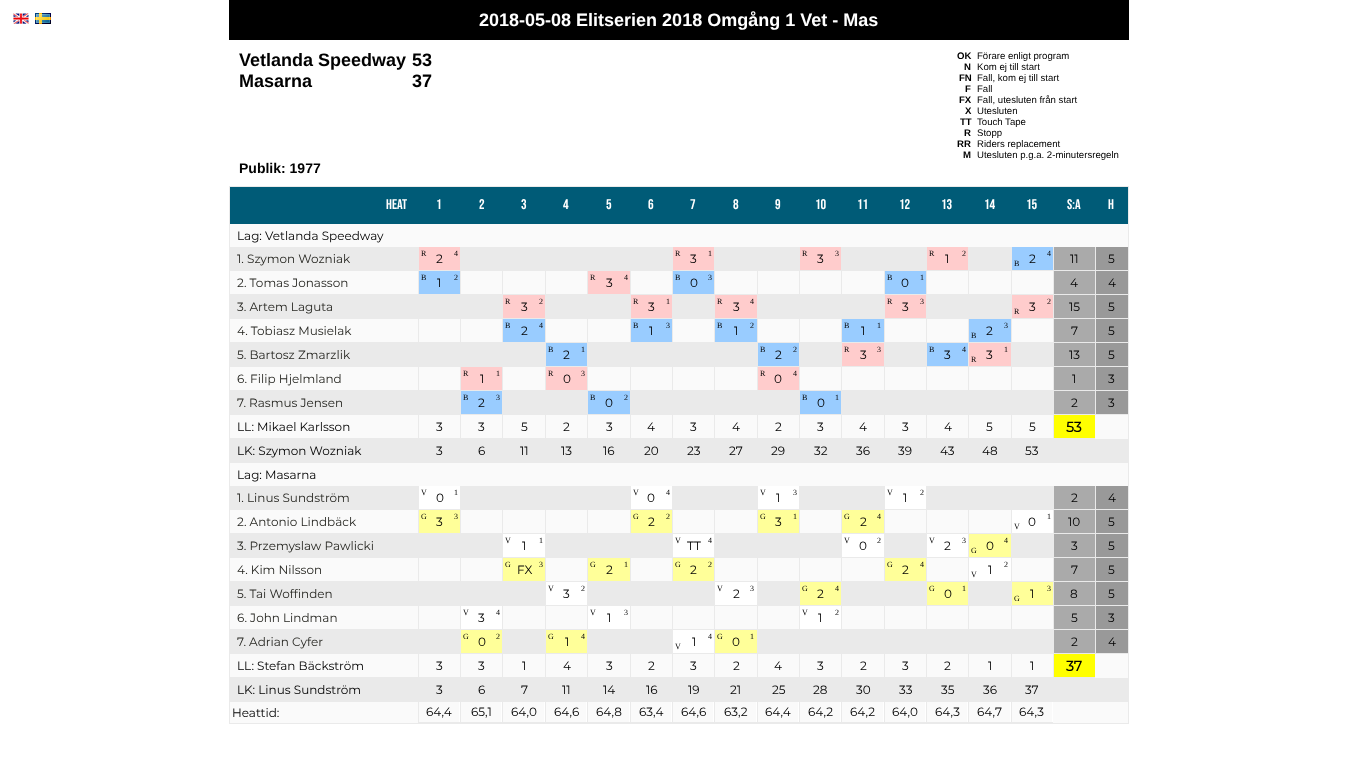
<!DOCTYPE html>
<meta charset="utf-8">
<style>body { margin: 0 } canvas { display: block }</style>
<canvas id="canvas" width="1357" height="762"></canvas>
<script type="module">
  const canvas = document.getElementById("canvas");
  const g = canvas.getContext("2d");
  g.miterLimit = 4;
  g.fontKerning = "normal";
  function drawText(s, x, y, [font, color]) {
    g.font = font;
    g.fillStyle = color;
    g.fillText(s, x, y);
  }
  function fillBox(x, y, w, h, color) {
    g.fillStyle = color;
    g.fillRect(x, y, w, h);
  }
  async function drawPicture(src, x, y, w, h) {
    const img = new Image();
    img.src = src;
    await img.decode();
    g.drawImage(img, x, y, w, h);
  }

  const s1 = ["bold 18px Liberation Sans", "#FFFFFF"];
  const s2 = ["bold 18px Liberation Sans", "#000000"];
  const s3 = ["bold 9.6px Liberation Sans", "#000000"];
  const s4 = ["9.6px Liberation Sans", "#000000"];
  const s5 = ["bold 14px Liberation Sans", "#000000"];
  const s6 = ["14px Bebas Neue", "#FFFFFF"];
  const s7 = ["100 12px Montserrat", "#000000"];
  const s8 = ["100 12px Montserrat", "#272722"];
  const s9 = ["8px Liberation Serif", "#000000"];
  const s10 = ["bold 14px Montserrat", "#000000"];

  fillBox(0, 0, 1357, 762, "#FFFFFF");
  await drawPicture("pic1.png", 13, 13, 16, 11);
  await drawPicture("pic2.png", 35, 13, 16, 11);
  fillBox(229, 0, 900, 40, "#000000");
  drawText("2018-05-08 Elitserien 2018 Omgång 1 Vet - Mas", 479, 26, s1);
  drawText("Vetlanda Speedway", 239, 66, s2);
  drawText("53", 412, 66, s2);
  drawText("Masarna", 239, 87, s2);
  drawText("37", 412, 87, s2);
  drawText("OK", 957, 59, s3);
  drawText("Förare enligt program", 977, 59, s4);
  drawText("N", 964, 70, s3);
  drawText("Kom ej till start", 977, 70, s4);
  drawText("FN", 959, 81, s3);
  drawText("Fall, kom ej till start", 977, 81, s4);
  drawText("F", 965, 92, s3);
  drawText("Fall", 977, 92, s4);
  drawText("FX", 959, 103, s3);
  drawText("Fall, utesluten från start", 977, 103, s4);
  drawText("X", 965, 114, s3);
  drawText("Utesluten", 977, 114, s4);
  drawText("TT", 960, 125, s3);
  drawText("Touch Tape", 977, 125, s4);
  drawText("R", 964, 136, s3);
  drawText("Stopp", 977, 136, s4);
  drawText("RR", 957, 147, s3);
  drawText("Riders replacement", 977, 147, s4);
  drawText("M", 963, 158, s3);
  drawText("Utesluten p.g.a. 2-minutersregeln", 977, 158, s4);
  drawText("Publik: 1977", 239, 173, s5);
  g.strokeStyle = "#EAEAEA";
  g.strokeRect(229.5, 186.5, 899, 537);
  fillBox(230, 187, 187, 36, "#005B77");
  fillBox(417, 187, 1, 37, "#005B77");
  fillBox(230, 223, 188, 1, "#005B77");
  drawText("Heat", 386, 209, s6);
  fillBox(419, 187, 40, 36, "#005B77");
  fillBox(459, 187, 1, 37, "#005B77");
  fillBox(418, 223, 42, 1, "#005B77");
  fillBox(418, 187, 1, 37, "#005B77");
  drawText("1", 436, 209, s6);
  fillBox(461, 187, 40, 36, "#005B77");
  fillBox(501, 187, 1, 37, "#005B77");
  fillBox(460, 223, 42, 1, "#005B77");
  fillBox(460, 187, 1, 37, "#005B77");
  drawText("2", 479, 209, s6);
  fillBox(503, 187, 41, 36, "#005B77");
  fillBox(544, 187, 1, 37, "#005B77");
  fillBox(502, 223, 43, 1, "#005B77");
  fillBox(502, 187, 1, 37, "#005B77");
  drawText("3", 521, 209, s6);
  fillBox(546, 187, 40, 36, "#005B77");
  fillBox(586, 187, 1, 37, "#005B77");
  fillBox(545, 223, 42, 1, "#005B77");
  fillBox(545, 187, 1, 37, "#005B77");
  drawText("4", 563, 209, s6);
  fillBox(588, 187, 41, 36, "#005B77");
  fillBox(629, 187, 1, 37, "#005B77");
  fillBox(587, 223, 43, 1, "#005B77");
  fillBox(587, 187, 1, 37, "#005B77");
  drawText("5", 606, 209, s6);
  fillBox(631, 187, 40, 36, "#005B77");
  fillBox(671, 187, 1, 37, "#005B77");
  fillBox(630, 223, 42, 1, "#005B77");
  fillBox(630, 187, 1, 37, "#005B77");
  drawText("6", 648, 209, s6);
  fillBox(673, 187, 40, 36, "#005B77");
  fillBox(713, 187, 1, 37, "#005B77");
  fillBox(672, 223, 42, 1, "#005B77");
  fillBox(672, 187, 1, 37, "#005B77");
  drawText("7", 690, 209, s6);
  fillBox(715, 187, 41, 36, "#005B77");
  fillBox(756, 187, 1, 37, "#005B77");
  fillBox(714, 223, 43, 1, "#005B77");
  fillBox(714, 187, 1, 37, "#005B77");
  drawText("8", 733, 209, s6);
  fillBox(758, 187, 40, 36, "#005B77");
  fillBox(798, 187, 1, 37, "#005B77");
  fillBox(757, 223, 42, 1, "#005B77");
  fillBox(757, 187, 1, 37, "#005B77");
  drawText("9", 775, 209, s6);
  fillBox(800, 187, 40, 36, "#005B77");
  fillBox(840, 187, 1, 37, "#005B77");
  fillBox(799, 223, 42, 1, "#005B77");
  fillBox(799, 187, 1, 37, "#005B77");
  drawText("10", 815, 209, s6);
  fillBox(842, 187, 41, 36, "#005B77");
  fillBox(883, 187, 1, 37, "#005B77");
  fillBox(841, 223, 43, 1, "#005B77");
  fillBox(841, 187, 1, 37, "#005B77");
  drawText("11", 857, 209, s6);
  fillBox(885, 187, 40, 36, "#005B77");
  fillBox(925, 187, 1, 37, "#005B77");
  fillBox(884, 223, 42, 1, "#005B77");
  fillBox(884, 187, 1, 37, "#005B77");
  drawText("12", 899, 209, s6);
  fillBox(927, 187, 40, 36, "#005B77");
  fillBox(967, 187, 1, 37, "#005B77");
  fillBox(926, 223, 42, 1, "#005B77");
  fillBox(926, 187, 1, 37, "#005B77");
  drawText("13", 941, 209, s6);
  fillBox(969, 187, 41, 36, "#005B77");
  fillBox(1010, 187, 1, 37, "#005B77");
  fillBox(968, 223, 43, 1, "#005B77");
  fillBox(968, 187, 1, 37, "#005B77");
  drawText("14", 984, 209, s6);
  fillBox(1012, 187, 40, 36, "#005B77");
  fillBox(1052, 187, 1, 37, "#005B77");
  fillBox(1011, 223, 42, 1, "#005B77");
  fillBox(1011, 187, 1, 37, "#005B77");
  drawText("15", 1026, 209, s6);
  fillBox(1054, 187, 40, 36, "#005B77");
  fillBox(1094, 187, 1, 37, "#005B77");
  fillBox(1053, 223, 42, 1, "#005B77");
  fillBox(1053, 187, 1, 37, "#005B77");
  drawText("S:a", 1067, 209, s6);
  fillBox(1096, 187, 31, 36, "#005B77");
  fillBox(1127, 187, 1, 37, "#005B77");
  fillBox(1095, 223, 33, 1, "#005B77");
  fillBox(1095, 187, 1, 37, "#005B77");
  drawText("H", 1108, 209, s6);
  fillBox(230, 224, 898, 23, "#FAFAFA");
  drawText("Lag: Vetlanda Speedway", 237, 240, s7);
  fillBox(230, 247, 898, 24, "#EAEAEA");
  drawText("1. Szymon Wozniak", 237, 263, s8);
  fillBox(419, 247, 41, 23, "#FFCCCC");
  drawText("R", 421, 256, s9);
  drawText("4", 454, 256, s9);
  drawText("2", 436, 263, s7);
  fillBox(673, 247, 41, 23, "#FFCCCC");
  drawText("R", 675, 256, s9);
  drawText("1", 708, 256, s9);
  drawText("3", 690, 263, s7);
  fillBox(800, 247, 41, 23, "#FFCCCC");
  drawText("R", 802, 256, s9);
  drawText("3", 817, 263, s7);
  drawText("3", 835, 256, s9);
  fillBox(927, 247, 41, 23, "#FFCCCC");
  drawText("R", 929, 256, s9);
  drawText("2", 962, 256, s9);
  drawText("1", 945, 263, s7);
  fillBox(1012, 247, 41, 23, "#99CCFF");
  drawText("B", 1014, 266, s9);
  drawText("4", 1047, 256, s9);
  drawText("2", 1029, 263, s7);
  fillBox(1054, 247, 41, 23, "#AAAAAA");
  drawText("11", 1070, 263, s7);
  fillBox(1096, 247, 32, 23, "#999999");
  drawText("5", 1108, 263, s7);
  fillBox(230, 271, 823, 23, "#FAFAFA");
  fillBox(230, 294, 898, 25, "#EAEAEA");
  drawText("2. Tomas Jonasson", 237, 287, s8);
  fillBox(419, 271, 41, 23, "#99CCFF");
  fillBox(418, 271, 1, 24, "#EAEAEA");
  drawText("B", 421, 280, s9);
  drawText("2", 454, 280, s9);
  drawText("1", 437, 287, s7);
  fillBox(460, 271, 1, 24, "#EAEAEA");
  fillBox(502, 271, 1, 24, "#EAEAEA");
  fillBox(545, 271, 1, 24, "#EAEAEA");
  fillBox(588, 271, 42, 23, "#FFCCCC");
  fillBox(587, 271, 1, 24, "#EAEAEA");
  drawText("R", 590, 280, s9);
  drawText("4", 624, 280, s9);
  drawText("3", 606, 287, s7);
  fillBox(630, 271, 1, 24, "#EAEAEA");
  fillBox(673, 271, 41, 23, "#99CCFF");
  fillBox(672, 271, 1, 24, "#EAEAEA");
  drawText("B", 675, 280, s9);
  drawText("0", 690, 287, s7);
  drawText("3", 708, 280, s9);
  fillBox(714, 271, 1, 24, "#EAEAEA");
  fillBox(757, 271, 1, 24, "#EAEAEA");
  fillBox(799, 271, 1, 24, "#EAEAEA");
  fillBox(841, 271, 1, 24, "#EAEAEA");
  fillBox(885, 271, 41, 23, "#99CCFF");
  fillBox(884, 271, 1, 24, "#EAEAEA");
  drawText("B", 887, 280, s9);
  drawText("1", 920, 280, s9);
  drawText("0", 901, 287, s7);
  fillBox(926, 271, 1, 24, "#EAEAEA");
  fillBox(968, 271, 1, 24, "#EAEAEA");
  fillBox(1011, 271, 1, 24, "#EAEAEA");
  fillBox(1054, 271, 41, 23, "#AAAAAA");
  fillBox(1053, 271, 1, 24, "#EAEAEA");
  drawText("4", 1070, 287, s7);
  fillBox(1096, 271, 32, 23, "#999999");
  fillBox(1095, 271, 1, 24, "#EAEAEA");
  drawText("4", 1108, 287, s7);
  drawText("3. Artem Laguta", 237, 311, s8);
  fillBox(503, 295, 42, 23, "#FFCCCC");
  drawText("R", 505, 304, s9);
  drawText("2", 539, 304, s9);
  drawText("3", 521, 311, s7);
  fillBox(631, 295, 41, 23, "#FFCCCC");
  drawText("R", 633, 304, s9);
  drawText("1", 666, 304, s9);
  drawText("3", 648, 311, s7);
  fillBox(715, 295, 42, 23, "#FFCCCC");
  drawText("R", 717, 304, s9);
  drawText("4", 750, 304, s9);
  drawText("3", 733, 311, s7);
  fillBox(885, 295, 41, 23, "#FFCCCC");
  drawText("R", 887, 304, s9);
  drawText("3", 902, 311, s7);
  drawText("3", 920, 304, s9);
  fillBox(1012, 295, 41, 23, "#FFCCCC");
  drawText("R", 1014, 314, s9);
  drawText("2", 1047, 304, s9);
  drawText("3", 1029, 311, s7);
  fillBox(1054, 295, 41, 23, "#AAAAAA");
  drawText("15", 1069, 311, s7);
  fillBox(1096, 295, 32, 23, "#999999");
  drawText("5", 1108, 311, s7);
  fillBox(230, 319, 823, 23, "#FAFAFA");
  fillBox(230, 342, 898, 25, "#EAEAEA");
  drawText("4. Tobiasz Musielak", 237, 335, s8);
  fillBox(418, 319, 1, 24, "#EAEAEA");
  fillBox(460, 319, 1, 24, "#EAEAEA");
  fillBox(503, 319, 42, 23, "#99CCFF");
  fillBox(502, 319, 1, 24, "#EAEAEA");
  drawText("B", 505, 328, s9);
  drawText("4", 539, 328, s9);
  drawText("2", 521, 335, s7);
  fillBox(545, 319, 1, 24, "#EAEAEA");
  fillBox(587, 319, 1, 24, "#EAEAEA");
  fillBox(631, 319, 41, 23, "#99CCFF");
  fillBox(630, 319, 1, 24, "#EAEAEA");
  drawText("B", 633, 328, s9);
  drawText("1", 649, 335, s7);
  drawText("3", 666, 328, s9);
  fillBox(672, 319, 1, 24, "#EAEAEA");
  fillBox(715, 319, 42, 23, "#99CCFF");
  fillBox(714, 319, 1, 24, "#EAEAEA");
  drawText("B", 717, 328, s9);
  drawText("2", 750, 328, s9);
  drawText("1", 734, 335, s7);
  fillBox(757, 319, 1, 24, "#EAEAEA");
  fillBox(799, 319, 1, 24, "#EAEAEA");
  fillBox(842, 319, 42, 23, "#99CCFF");
  fillBox(841, 319, 1, 24, "#EAEAEA");
  drawText("B", 844, 328, s9);
  drawText("1", 877, 328, s9);
  drawText("1", 861, 335, s7);
  fillBox(884, 319, 1, 24, "#EAEAEA");
  fillBox(926, 319, 1, 24, "#EAEAEA");
  fillBox(969, 319, 42, 23, "#99CCFF");
  fillBox(968, 319, 1, 24, "#EAEAEA");
  drawText("B", 971, 338, s9);
  drawText("2", 986, 335, s7);
  drawText("3", 1004, 328, s9);
  fillBox(1011, 319, 1, 24, "#EAEAEA");
  fillBox(1054, 319, 41, 23, "#AAAAAA");
  fillBox(1053, 319, 1, 24, "#EAEAEA");
  drawText("7", 1071, 335, s7);
  fillBox(1096, 319, 32, 23, "#999999");
  fillBox(1095, 319, 1, 24, "#EAEAEA");
  drawText("5", 1108, 335, s7);
  drawText("5. Bartosz Zmarzlik", 237, 359, s8);
  fillBox(546, 343, 41, 23, "#99CCFF");
  drawText("B", 548, 352, s9);
  drawText("1", 581, 352, s9);
  drawText("2", 563, 359, s7);
  fillBox(758, 343, 41, 23, "#99CCFF");
  drawText("B", 760, 352, s9);
  drawText("2", 793, 352, s9);
  drawText("2", 775, 359, s7);
  fillBox(842, 343, 42, 23, "#FFCCCC");
  drawText("R", 844, 352, s9);
  drawText("3", 860, 359, s7);
  drawText("3", 877, 352, s9);
  fillBox(927, 343, 41, 23, "#99CCFF");
  drawText("B", 929, 352, s9);
  drawText("4", 962, 352, s9);
  drawText("3", 944, 359, s7);
  fillBox(969, 343, 42, 23, "#FFCCCC");
  drawText("R", 971, 362, s9);
  drawText("1", 1004, 352, s9);
  drawText("3", 986, 359, s7);
  fillBox(1054, 343, 41, 23, "#AAAAAA");
  drawText("13", 1069, 359, s7);
  fillBox(1096, 343, 32, 23, "#999999");
  drawText("5", 1108, 359, s7);
  fillBox(230, 367, 823, 23, "#FAFAFA");
  fillBox(230, 390, 898, 25, "#EAEAEA");
  drawText("6. Filip Hjelmland", 237, 383, s8);
  fillBox(418, 367, 1, 24, "#EAEAEA");
  fillBox(461, 367, 41, 23, "#FFCCCC");
  fillBox(460, 367, 1, 24, "#EAEAEA");
  drawText("R", 463, 376, s9);
  drawText("1", 496, 376, s9);
  drawText("1", 480, 383, s7);
  fillBox(502, 367, 1, 24, "#EAEAEA");
  fillBox(546, 367, 41, 23, "#FFCCCC");
  fillBox(545, 367, 1, 24, "#EAEAEA");
  drawText("R", 548, 376, s9);
  drawText("0", 563, 383, s7);
  drawText("3", 581, 376, s9);
  fillBox(587, 367, 1, 24, "#EAEAEA");
  fillBox(630, 367, 1, 24, "#EAEAEA");
  fillBox(672, 367, 1, 24, "#EAEAEA");
  fillBox(714, 367, 1, 24, "#EAEAEA");
  fillBox(758, 367, 41, 23, "#FFCCCC");
  fillBox(757, 367, 1, 24, "#EAEAEA");
  drawText("R", 760, 376, s9);
  drawText("4", 793, 376, s9);
  drawText("0", 774, 383, s7);
  fillBox(799, 367, 1, 24, "#EAEAEA");
  fillBox(841, 367, 1, 24, "#EAEAEA");
  fillBox(884, 367, 1, 24, "#EAEAEA");
  fillBox(926, 367, 1, 24, "#EAEAEA");
  fillBox(968, 367, 1, 24, "#EAEAEA");
  fillBox(1011, 367, 1, 24, "#EAEAEA");
  fillBox(1054, 367, 41, 23, "#AAAAAA");
  fillBox(1053, 367, 1, 24, "#EAEAEA");
  drawText("1", 1072, 383, s7);
  fillBox(1096, 367, 32, 23, "#999999");
  fillBox(1095, 367, 1, 24, "#EAEAEA");
  drawText("3", 1108, 383, s7);
  drawText("7. Rasmus Jensen", 237, 407, s8);
  fillBox(461, 391, 41, 23, "#99CCFF");
  drawText("B", 463, 400, s9);
  drawText("2", 478, 407, s7);
  drawText("3", 496, 400, s9);
  fillBox(588, 391, 42, 23, "#99CCFF");
  drawText("B", 590, 400, s9);
  drawText("2", 624, 400, s9);
  drawText("0", 605, 407, s7);
  fillBox(800, 391, 41, 23, "#99CCFF");
  drawText("B", 802, 400, s9);
  drawText("1", 835, 400, s9);
  drawText("0", 817, 407, s7);
  fillBox(1054, 391, 41, 23, "#AAAAAA");
  drawText("2", 1071, 407, s7);
  fillBox(1096, 391, 32, 23, "#999999");
  drawText("3", 1108, 407, s7);
  fillBox(230, 415, 898, 24, "#FAFAFA");
  fillBox(230, 438, 865, 1, "#EAEAEA");
  drawText("LL: Mikael Karlsson", 237, 431, s7);
  fillBox(418, 415, 1, 24, "#EAEAEA");
  drawText("3", 436, 431, s7);
  fillBox(460, 415, 1, 24, "#EAEAEA");
  drawText("3", 478, 431, s7);
  fillBox(502, 415, 1, 24, "#EAEAEA");
  drawText("5", 521, 431, s7);
  fillBox(545, 415, 1, 24, "#EAEAEA");
  drawText("2", 563, 431, s7);
  fillBox(587, 415, 1, 24, "#EAEAEA");
  drawText("3", 606, 431, s7);
  fillBox(630, 415, 1, 24, "#EAEAEA");
  drawText("4", 647, 431, s7);
  fillBox(672, 415, 1, 24, "#EAEAEA");
  drawText("3", 690, 431, s7);
  fillBox(714, 415, 1, 24, "#EAEAEA");
  drawText("4", 732, 431, s7);
  fillBox(757, 415, 1, 24, "#EAEAEA");
  drawText("2", 775, 431, s7);
  fillBox(799, 415, 1, 24, "#EAEAEA");
  drawText("3", 817, 431, s7);
  fillBox(841, 415, 1, 24, "#EAEAEA");
  drawText("4", 859, 431, s7);
  fillBox(884, 415, 1, 24, "#EAEAEA");
  drawText("3", 902, 431, s7);
  fillBox(926, 415, 1, 24, "#EAEAEA");
  drawText("4", 944, 431, s7);
  fillBox(968, 415, 1, 24, "#EAEAEA");
  drawText("5", 986, 431, s7);
  fillBox(1011, 415, 1, 24, "#EAEAEA");
  drawText("5", 1029, 431, s7);
  fillBox(1054, 415, 41, 23, "#FFFF00");
  fillBox(1053, 415, 1, 24, "#EAEAEA");
  drawText("53", 1066, 432, s10);
  fillBox(230, 439, 898, 24, "#EAEAEA");
  drawText("LK: Szymon Wozniak", 237, 455, s7);
  drawText("3", 436, 455, s7);
  drawText("6", 478, 455, s7);
  drawText("11", 520, 455, s7);
  drawText("13", 561, 455, s7);
  drawText("16", 603, 455, s7);
  drawText("20", 644, 455, s7);
  drawText("23", 687, 455, s7);
  drawText("27", 729, 455, s7);
  drawText("29", 771, 455, s7);
  drawText("32", 814, 455, s7);
  drawText("36", 856, 455, s7);
  drawText("39", 898, 455, s7);
  drawText("43", 940, 455, s7);
  drawText("48", 982, 455, s7);
  drawText("53", 1025, 455, s7);
  fillBox(230, 463, 898, 23, "#FAFAFA");
  drawText("Lag: Masarna", 237, 479, s7);
  fillBox(230, 486, 898, 24, "#EAEAEA");
  drawText("1. Linus Sundström", 237, 502, s8);
  fillBox(419, 486, 41, 23, "#FFFFFF");
  drawText("V", 421, 495, s9);
  drawText("1", 454, 495, s9);
  drawText("0", 436, 502, s7);
  fillBox(631, 486, 41, 23, "#FFFFFF");
  drawText("V", 633, 495, s9);
  drawText("4", 666, 495, s9);
  drawText("0", 647, 502, s7);
  fillBox(758, 486, 41, 23, "#FFFFFF");
  drawText("V", 760, 495, s9);
  drawText("1", 776, 502, s7);
  drawText("3", 793, 495, s9);
  fillBox(885, 486, 41, 23, "#FFFFFF");
  drawText("V", 887, 495, s9);
  drawText("2", 920, 495, s9);
  drawText("1", 903, 502, s7);
  fillBox(1054, 486, 41, 23, "#AAAAAA");
  drawText("2", 1071, 502, s7);
  fillBox(1096, 486, 32, 23, "#999999");
  drawText("4", 1108, 502, s7);
  fillBox(230, 510, 781, 23, "#FAFAFA");
  fillBox(230, 533, 898, 25, "#EAEAEA");
  drawText("2. Antonio Lindbäck", 237, 526, s8);
  fillBox(419, 510, 41, 23, "#FFFF99");
  fillBox(418, 510, 1, 24, "#EAEAEA");
  drawText("G", 421, 519, s9);
  drawText("3", 436, 526, s7);
  drawText("3", 454, 519, s9);
  fillBox(460, 510, 1, 24, "#EAEAEA");
  fillBox(502, 510, 1, 24, "#EAEAEA");
  fillBox(545, 510, 1, 24, "#EAEAEA");
  fillBox(587, 510, 1, 24, "#EAEAEA");
  fillBox(631, 510, 41, 23, "#FFFF99");
  fillBox(630, 510, 1, 24, "#EAEAEA");
  drawText("G", 633, 519, s9);
  drawText("2", 666, 519, s9);
  drawText("2", 648, 526, s7);
  fillBox(672, 510, 1, 24, "#EAEAEA");
  fillBox(714, 510, 1, 24, "#EAEAEA");
  fillBox(758, 510, 41, 23, "#FFFF99");
  fillBox(757, 510, 1, 24, "#EAEAEA");
  drawText("G", 760, 519, s9);
  drawText("1", 793, 519, s9);
  drawText("3", 775, 526, s7);
  fillBox(799, 510, 1, 24, "#EAEAEA");
  fillBox(842, 510, 42, 23, "#FFFF99");
  fillBox(841, 510, 1, 24, "#EAEAEA");
  drawText("G", 844, 519, s9);
  drawText("4", 877, 519, s9);
  drawText("2", 860, 526, s7);
  fillBox(884, 510, 1, 24, "#EAEAEA");
  fillBox(926, 510, 1, 24, "#EAEAEA");
  fillBox(968, 510, 1, 24, "#EAEAEA");
  fillBox(1011, 510, 1, 24, "#EAEAEA");
  drawText("V", 1014, 529, s9);
  drawText("1", 1047, 519, s9);
  drawText("0", 1028, 526, s7);
  fillBox(1054, 510, 41, 23, "#AAAAAA");
  fillBox(1053, 510, 1, 24, "#EAEAEA");
  drawText("10", 1068, 526, s7);
  fillBox(1096, 510, 32, 23, "#999999");
  fillBox(1095, 510, 1, 24, "#EAEAEA");
  drawText("5", 1108, 526, s7);
  drawText("3. Przemyslaw Pawlicki", 237, 550, s8);
  fillBox(503, 534, 42, 23, "#FFFFFF");
  drawText("V", 505, 543, s9);
  drawText("1", 539, 543, s9);
  drawText("1", 522, 550, s7);
  fillBox(673, 534, 41, 23, "#FFFFFF");
  drawText("V", 675, 543, s9);
  drawText("4", 708, 543, s9);
  drawText("TT", 687, 550, s7);
  fillBox(842, 534, 42, 23, "#FFFFFF");
  drawText("V", 844, 543, s9);
  drawText("2", 877, 543, s9);
  drawText("0", 859, 550, s7);
  fillBox(927, 534, 41, 23, "#FFFFFF");
  drawText("V", 929, 543, s9);
  drawText("2", 944, 550, s7);
  drawText("3", 962, 543, s9);
  fillBox(969, 534, 42, 23, "#FFFF99");
  drawText("G", 971, 553, s9);
  drawText("4", 1004, 543, s9);
  drawText("0", 986, 550, s7);
  fillBox(1054, 534, 41, 23, "#AAAAAA");
  drawText("3", 1071, 550, s7);
  fillBox(1096, 534, 32, 23, "#999999");
  drawText("5", 1108, 550, s7);
  fillBox(230, 558, 823, 23, "#FAFAFA");
  fillBox(230, 581, 898, 25, "#EAEAEA");
  drawText("4. Kim Nilsson", 237, 574, s8);
  fillBox(418, 558, 1, 24, "#EAEAEA");
  fillBox(460, 558, 1, 24, "#EAEAEA");
  fillBox(503, 558, 42, 23, "#FFFF99");
  fillBox(502, 558, 1, 24, "#EAEAEA");
  drawText("G", 505, 567, s9);
  drawText("FX", 517, 574, s7);
  drawText("3", 539, 567, s9);
  fillBox(545, 558, 1, 24, "#EAEAEA");
  fillBox(588, 558, 42, 23, "#FFFF99");
  fillBox(587, 558, 1, 24, "#EAEAEA");
  drawText("G", 590, 567, s9);
  drawText("1", 624, 567, s9);
  drawText("2", 606, 574, s7);
  fillBox(630, 558, 1, 24, "#EAEAEA");
  fillBox(673, 558, 41, 23, "#FFFF99");
  fillBox(672, 558, 1, 24, "#EAEAEA");
  drawText("G", 675, 567, s9);
  drawText("2", 708, 567, s9);
  drawText("2", 690, 574, s7);
  fillBox(714, 558, 1, 24, "#EAEAEA");
  fillBox(757, 558, 1, 24, "#EAEAEA");
  fillBox(799, 558, 1, 24, "#EAEAEA");
  fillBox(841, 558, 1, 24, "#EAEAEA");
  fillBox(885, 558, 41, 23, "#FFFF99");
  fillBox(884, 558, 1, 24, "#EAEAEA");
  drawText("G", 887, 567, s9);
  drawText("4", 920, 567, s9);
  drawText("2", 902, 574, s7);
  fillBox(926, 558, 1, 24, "#EAEAEA");
  fillBox(969, 558, 42, 23, "#FFFFFF");
  fillBox(968, 558, 1, 24, "#EAEAEA");
  drawText("V", 971, 577, s9);
  drawText("2", 1004, 567, s9);
  drawText("1", 988, 574, s7);
  fillBox(1011, 558, 1, 24, "#EAEAEA");
  fillBox(1054, 558, 41, 23, "#AAAAAA");
  fillBox(1053, 558, 1, 24, "#EAEAEA");
  drawText("7", 1071, 574, s7);
  fillBox(1096, 558, 32, 23, "#999999");
  fillBox(1095, 558, 1, 24, "#EAEAEA");
  drawText("5", 1108, 574, s7);
  drawText("5. Tai Woffinden", 237, 598, s8);
  fillBox(546, 582, 41, 23, "#FFFFFF");
  drawText("V", 548, 591, s9);
  drawText("2", 581, 591, s9);
  drawText("3", 563, 598, s7);
  fillBox(715, 582, 42, 23, "#FFFFFF");
  drawText("V", 717, 591, s9);
  drawText("2", 733, 598, s7);
  drawText("3", 750, 591, s9);
  fillBox(800, 582, 41, 23, "#FFFF99");
  drawText("G", 802, 591, s9);
  drawText("4", 835, 591, s9);
  drawText("2", 817, 598, s7);
  fillBox(927, 582, 41, 23, "#FFFF99");
  drawText("G", 929, 591, s9);
  drawText("1", 962, 591, s9);
  drawText("0", 944, 598, s7);
  fillBox(1012, 582, 41, 23, "#FFFF99");
  drawText("G", 1014, 601, s9);
  drawText("1", 1030, 598, s7);
  drawText("3", 1047, 591, s9);
  fillBox(1054, 582, 41, 23, "#AAAAAA");
  drawText("8", 1070, 598, s7);
  fillBox(1096, 582, 32, 23, "#999999");
  drawText("5", 1108, 598, s7);
  fillBox(230, 606, 823, 23, "#FAFAFA");
  fillBox(230, 629, 898, 25, "#EAEAEA");
  drawText("6. John Lindman", 237, 622, s8);
  fillBox(418, 606, 1, 24, "#EAEAEA");
  fillBox(461, 606, 41, 23, "#FFFFFF");
  fillBox(460, 606, 1, 24, "#EAEAEA");
  drawText("V", 463, 615, s9);
  drawText("4", 496, 615, s9);
  drawText("3", 478, 622, s7);
  fillBox(502, 606, 1, 24, "#EAEAEA");
  fillBox(545, 606, 1, 24, "#EAEAEA");
  fillBox(588, 606, 42, 23, "#FFFFFF");
  fillBox(587, 606, 1, 24, "#EAEAEA");
  drawText("V", 590, 615, s9);
  drawText("1", 607, 622, s7);
  drawText("3", 624, 615, s9);
  fillBox(630, 606, 1, 24, "#EAEAEA");
  fillBox(672, 606, 1, 24, "#EAEAEA");
  fillBox(714, 606, 1, 24, "#EAEAEA");
  fillBox(757, 606, 1, 24, "#EAEAEA");
  fillBox(800, 606, 41, 23, "#FFFFFF");
  fillBox(799, 606, 1, 24, "#EAEAEA");
  drawText("V", 802, 615, s9);
  drawText("2", 835, 615, s9);
  drawText("1", 818, 622, s7);
  fillBox(841, 606, 1, 24, "#EAEAEA");
  fillBox(884, 606, 1, 24, "#EAEAEA");
  fillBox(926, 606, 1, 24, "#EAEAEA");
  fillBox(968, 606, 1, 24, "#EAEAEA");
  fillBox(1011, 606, 1, 24, "#EAEAEA");
  fillBox(1054, 606, 41, 23, "#AAAAAA");
  fillBox(1053, 606, 1, 24, "#EAEAEA");
  drawText("5", 1071, 622, s7);
  fillBox(1096, 606, 32, 23, "#999999");
  fillBox(1095, 606, 1, 24, "#EAEAEA");
  drawText("3", 1108, 622, s7);
  drawText("7. Adrian Cyfer", 237, 646, s8);
  fillBox(461, 630, 41, 23, "#FFFF99");
  drawText("G", 463, 639, s9);
  drawText("2", 496, 639, s9);
  drawText("0", 478, 646, s7);
  fillBox(546, 630, 41, 23, "#FFFF99");
  drawText("G", 548, 639, s9);
  drawText("4", 581, 639, s9);
  drawText("1", 565, 646, s7);
  fillBox(673, 630, 41, 23, "#FFFFFF");
  drawText("V", 675, 649, s9);
  drawText("4", 708, 639, s9);
  drawText("1", 692, 646, s7);
  fillBox(715, 630, 42, 23, "#FFFF99");
  drawText("G", 717, 639, s9);
  drawText("1", 750, 639, s9);
  drawText("0", 732, 646, s7);
  fillBox(1054, 630, 41, 23, "#AAAAAA");
  drawText("2", 1071, 646, s7);
  fillBox(1096, 630, 32, 23, "#999999");
  drawText("4", 1108, 646, s7);
  fillBox(230, 654, 898, 24, "#FAFAFA");
  fillBox(230, 677, 865, 1, "#EAEAEA");
  drawText("LL: Stefan Bäckström", 237, 670, s7);
  fillBox(418, 654, 1, 24, "#EAEAEA");
  drawText("3", 436, 670, s7);
  fillBox(460, 654, 1, 24, "#EAEAEA");
  drawText("3", 478, 670, s7);
  fillBox(502, 654, 1, 24, "#EAEAEA");
  drawText("1", 522, 670, s7);
  fillBox(545, 654, 1, 24, "#EAEAEA");
  drawText("4", 563, 670, s7);
  fillBox(587, 654, 1, 24, "#EAEAEA");
  drawText("3", 606, 670, s7);
  fillBox(630, 654, 1, 24, "#EAEAEA");
  drawText("2", 648, 670, s7);
  fillBox(672, 654, 1, 24, "#EAEAEA");
  drawText("3", 690, 670, s7);
  fillBox(714, 654, 1, 24, "#EAEAEA");
  drawText("2", 733, 670, s7);
  fillBox(757, 654, 1, 24, "#EAEAEA");
  drawText("4", 774, 670, s7);
  fillBox(799, 654, 1, 24, "#EAEAEA");
  drawText("3", 817, 670, s7);
  fillBox(841, 654, 1, 24, "#EAEAEA");
  drawText("2", 860, 670, s7);
  fillBox(884, 654, 1, 24, "#EAEAEA");
  drawText("3", 902, 670, s7);
  fillBox(926, 654, 1, 24, "#EAEAEA");
  drawText("2", 944, 670, s7);
  fillBox(968, 654, 1, 24, "#EAEAEA");
  drawText("1", 988, 670, s7);
  fillBox(1011, 654, 1, 24, "#EAEAEA");
  drawText("1", 1030, 670, s7);
  fillBox(1054, 654, 41, 23, "#FFFF00");
  fillBox(1053, 654, 1, 24, "#EAEAEA");
  drawText("37", 1066, 671, s10);
  fillBox(230, 678, 898, 24, "#EAEAEA");
  drawText("LK: Linus Sundström", 237, 694, s7);
  drawText("3", 436, 694, s7);
  drawText("6", 478, 694, s7);
  drawText("7", 521, 694, s7);
  drawText("11", 562, 694, s7);
  drawText("14", 603, 694, s7);
  drawText("16", 646, 694, s7);
  drawText("19", 688, 694, s7);
  drawText("21", 730, 694, s7);
  drawText("25", 772, 694, s7);
  drawText("28", 813, 694, s7);
  drawText("30", 856, 694, s7);
  drawText("33", 899, 694, s7);
  drawText("35", 941, 694, s7);
  drawText("36", 983, 694, s7);
  drawText("37", 1025, 694, s7);
  fillBox(230, 702, 898, 21, "#FAFAFA");
  drawText("Heattid:", 232, 717, s7);
  fillBox(459, 702, 1, 21, "#FFFFFF");
  fillBox(418, 722, 42, 1, "#EAEAEA");
  fillBox(418, 702, 1, 21, "#EAEAEA");
  drawText("64,4", 426, 716, s7);
  fillBox(501, 702, 1, 21, "#FFFFFF");
  fillBox(460, 722, 42, 1, "#EAEAEA");
  fillBox(460, 702, 1, 21, "#EAEAEA");
  drawText("65,1", 471, 716, s7);
  fillBox(544, 702, 1, 21, "#FFFFFF");
  fillBox(502, 722, 43, 1, "#EAEAEA");
  fillBox(502, 702, 1, 21, "#EAEAEA");
  drawText("64,0", 511, 716, s7);
  fillBox(586, 702, 1, 21, "#FFFFFF");
  fillBox(545, 722, 42, 1, "#EAEAEA");
  fillBox(545, 702, 1, 21, "#EAEAEA");
  drawText("64,6", 554, 716, s7);
  fillBox(629, 702, 1, 21, "#FFFFFF");
  fillBox(587, 722, 43, 1, "#EAEAEA");
  fillBox(587, 702, 1, 21, "#EAEAEA");
  drawText("64,8", 596, 716, s7);
  fillBox(671, 702, 1, 21, "#FFFFFF");
  fillBox(630, 722, 42, 1, "#EAEAEA");
  fillBox(630, 702, 1, 21, "#EAEAEA");
  drawText("63,4", 639, 716, s7);
  fillBox(713, 702, 1, 21, "#FFFFFF");
  fillBox(672, 722, 42, 1, "#EAEAEA");
  fillBox(672, 702, 1, 21, "#EAEAEA");
  drawText("64,6", 681, 716, s7);
  fillBox(756, 702, 1, 21, "#FFFFFF");
  fillBox(714, 722, 43, 1, "#EAEAEA");
  fillBox(714, 702, 1, 21, "#EAEAEA");
  drawText("63,2", 724, 716, s7);
  fillBox(798, 702, 1, 21, "#FFFFFF");
  fillBox(757, 722, 42, 1, "#EAEAEA");
  fillBox(757, 702, 1, 21, "#EAEAEA");
  drawText("64,4", 765, 716, s7);
  fillBox(840, 702, 1, 21, "#FFFFFF");
  fillBox(799, 722, 42, 1, "#EAEAEA");
  fillBox(799, 702, 1, 21, "#EAEAEA");
  drawText("64,2", 808, 716, s7);
  fillBox(883, 702, 1, 21, "#FFFFFF");
  fillBox(841, 722, 43, 1, "#EAEAEA");
  fillBox(841, 702, 1, 21, "#EAEAEA");
  drawText("64,2", 850, 716, s7);
  fillBox(925, 702, 1, 21, "#FFFFFF");
  fillBox(884, 722, 42, 1, "#EAEAEA");
  fillBox(884, 702, 1, 21, "#EAEAEA");
  drawText("64,0", 892, 716, s7);
  fillBox(967, 702, 1, 21, "#FFFFFF");
  fillBox(926, 722, 42, 1, "#EAEAEA");
  fillBox(926, 702, 1, 21, "#EAEAEA");
  drawText("64,3", 935, 716, s7);
  fillBox(1010, 702, 1, 21, "#FFFFFF");
  fillBox(968, 722, 43, 1, "#EAEAEA");
  fillBox(968, 702, 1, 21, "#EAEAEA");
  drawText("64,7", 977, 716, s7);
  fillBox(1052, 702, 1, 21, "#FFFFFF");
  fillBox(1011, 722, 42, 1, "#EAEAEA");
  fillBox(1011, 702, 1, 21, "#EAEAEA");
  drawText("64,3", 1019, 716, s7);
</script>
